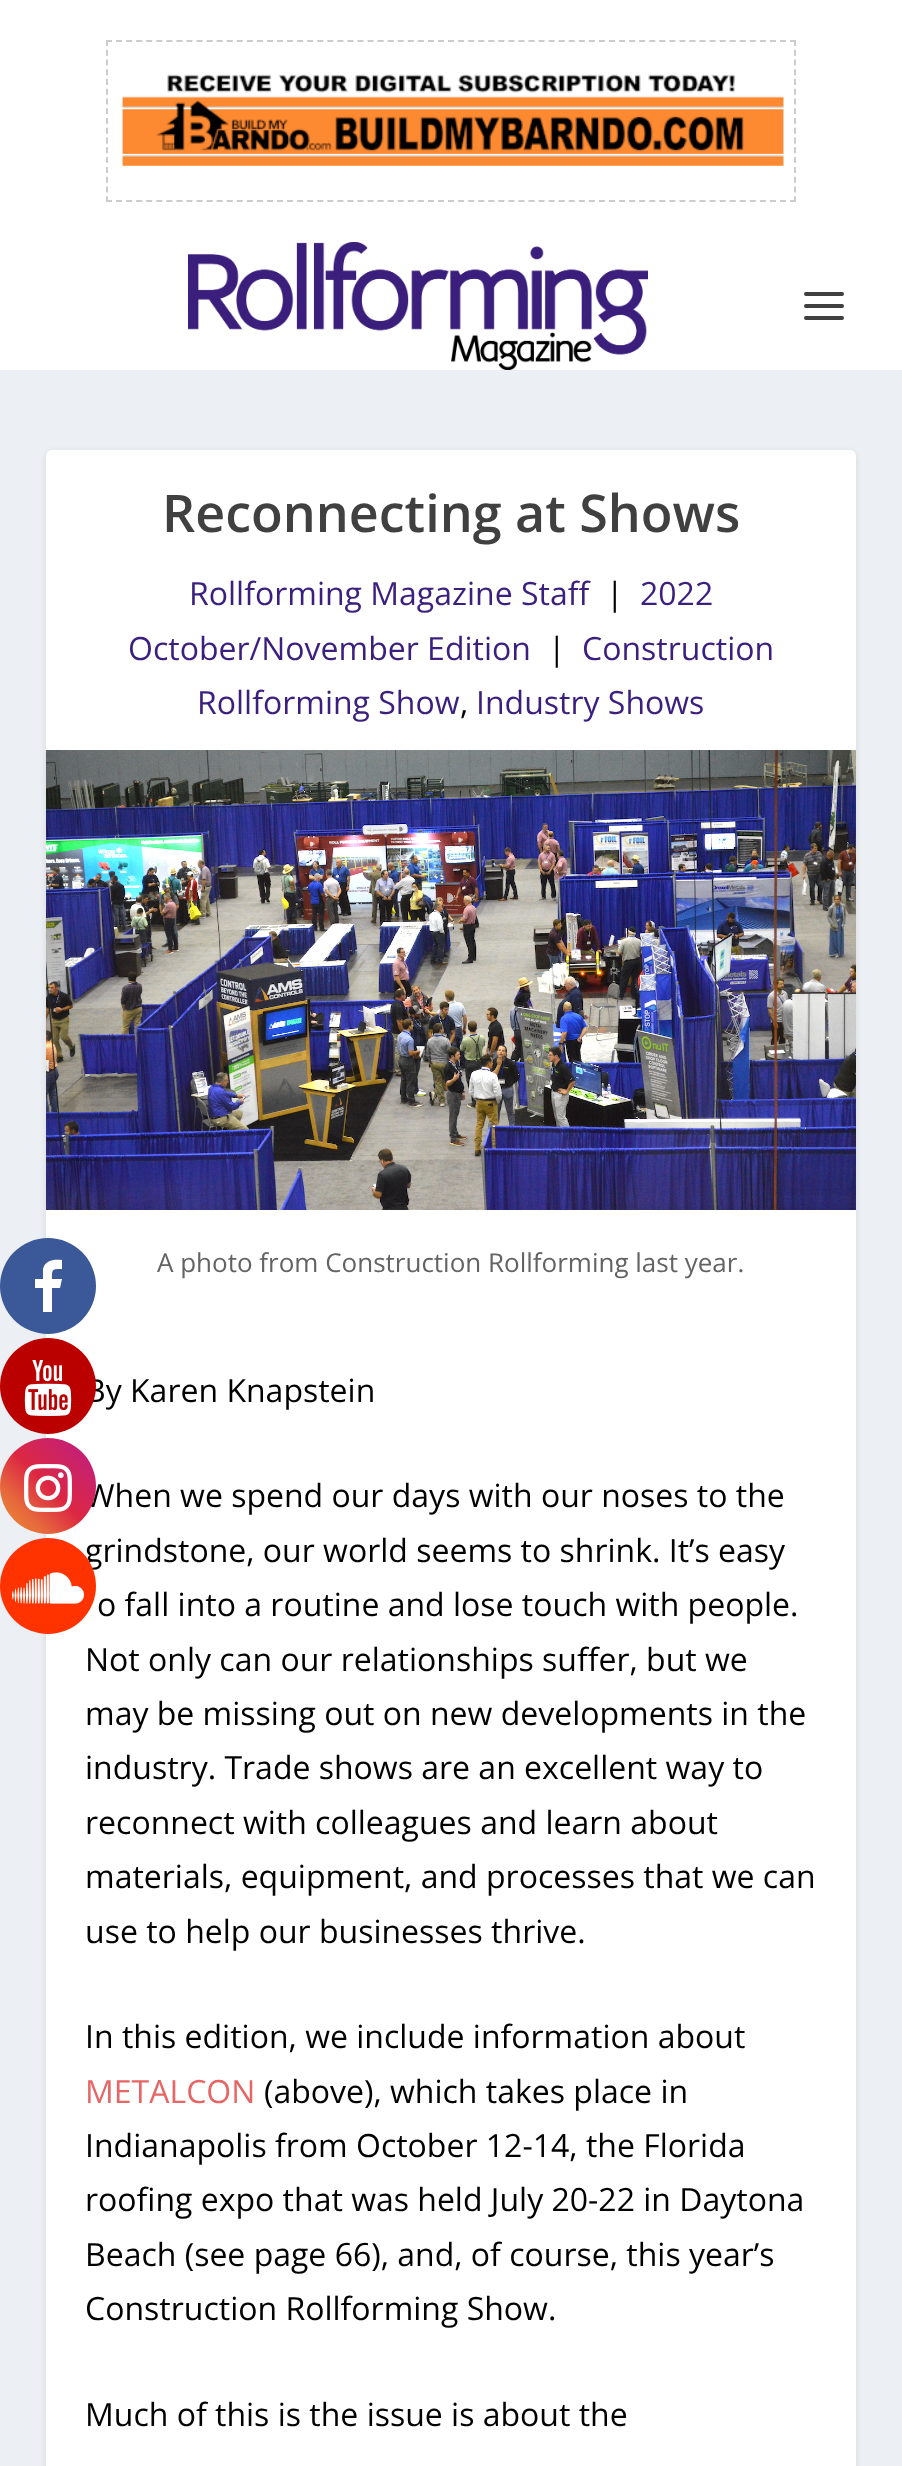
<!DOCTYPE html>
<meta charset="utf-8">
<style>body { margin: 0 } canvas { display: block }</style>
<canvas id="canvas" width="902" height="2466"></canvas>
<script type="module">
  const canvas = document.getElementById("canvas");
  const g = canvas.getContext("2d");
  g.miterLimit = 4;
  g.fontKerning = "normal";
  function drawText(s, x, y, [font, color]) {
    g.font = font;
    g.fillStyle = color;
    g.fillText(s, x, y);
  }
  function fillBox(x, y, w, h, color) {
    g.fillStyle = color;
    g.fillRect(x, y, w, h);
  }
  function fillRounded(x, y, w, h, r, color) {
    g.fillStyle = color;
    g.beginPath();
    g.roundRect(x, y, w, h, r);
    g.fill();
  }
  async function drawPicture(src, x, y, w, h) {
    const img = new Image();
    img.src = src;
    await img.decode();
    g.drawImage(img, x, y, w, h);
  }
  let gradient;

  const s1 = ["32px Open Sans", "#000000"];
  const s2 = ["600 52px Open Sans", "#404040"];
  const s3 = ["32px Open Sans", "#3B1F7E"];
  const s4 = ["26px Open Sans", "#646363"];
  const s5 = ["32px Open Sans", "#E66666"];

  fillBox(0, 0, 902, 2466, "#ECF0F5");
  g.fillStyle = "rgba(0, 0, 0, 0.1)";
  g.filter = "blur(3px)";
  g.beginPath();
  g.roundRect(46, 452, 810, 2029, 6);
  g.fill();
  g.filter = "none";
  fillRounded(46, 450, 810, 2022, 6, "#FFFFFF");
  g.fillStyle = "#3B5998";
  g.beginPath();
  g.arc(48, 1286, 48, 0, Math.PI * 2);
  g.fill();
  g.fillStyle = "#FFFFFF";
  g.beginPath();
  g.moveTo(62, 1260);
  g.lineTo(62, 1269);
  g.bezierCurveTo(52, 1269, 52, 1269, 52, 1279);
  g.lineTo(62, 1279);
  g.lineTo(60, 1288);
  g.lineTo(52, 1288);
  g.lineTo(52, 1312);
  g.lineTo(43, 1312);
  g.lineTo(43, 1288);
  g.lineTo(35, 1288);
  g.lineTo(35, 1279);
  g.lineTo(43, 1279);
  g.lineTo(43, 1269);
  g.bezierCurveTo(45, 1260, 54, 1259, 62, 1260);
  g.closePath();
  g.fill();
  drawText("By Karen Knapstein", 85, 1402, s1);
  g.fillStyle = "#BB0000";
  g.beginPath();
  g.arc(48, 1386, 48, 0, Math.PI * 2);
  g.fill();
  await drawPicture("pic1.png", 24, 1360, 48, 56);
  drawText("When we spend our days with our noses to the", 85, 1507, s1);
  gradient = g.createLinearGradient(0, 1534, 96, 1438);
  gradient.addColorStop(0, "#F09433");
  gradient.addColorStop(0.25, "#E6683C");
  gradient.addColorStop(0.5, "#DC2743");
  gradient.addColorStop(0.75, "#CC2366");
  gradient.addColorStop(1, "#BC1888");
  g.fillStyle = gradient;
  g.beginPath();
  g.arc(48, 1486, 48, 0, Math.PI * 2);
  g.fill();
  await drawPicture("pic2.png", 24, 1464, 48, 48);
  drawText("grindstone, our world seems to shrink. It’s easy", 85, 1562, s1);
  g.fillStyle = "#FF3300";
  g.beginPath();
  g.arc(48, 1586, 48, 0, Math.PI * 2);
  g.fill();
  await drawPicture("pic3.png", 12, 1572, 72, 32);
  fillBox(0, 0, 902, 370, "#FFFFFF");
  g.beginPath();
  g.moveTo(106, 41);
  g.lineTo(796, 41);
  g.strokeStyle = "#CCCCCC";
  g.lineWidth = 2;
  g.setLineDash([6, 4.06]);
  g.stroke();
  g.beginPath();
  g.moveTo(795, 40);
  g.lineTo(795, 202);
  g.setLineDash([6, 3.76]);
  g.stroke();
  g.beginPath();
  g.moveTo(106, 201);
  g.lineTo(796, 201);
  g.setLineDash([6, 4.06]);
  g.stroke();
  g.beginPath();
  g.moveTo(107, 40);
  g.lineTo(107, 202);
  g.setLineDash([6, 3.76]);
  g.stroke();
  await drawPicture("pic4.png", 122, 74, 662, 92);
  await drawPicture("pic5.png", 188, 242, 460, 128);
  fillRounded(804, 292, 40, 4, 2, "#404040");
  fillRounded(804, 304, 40, 4, 2, "#404040");
  fillRounded(804, 316, 40, 4, 2, "#404040");
  drawText("Reconnecting at Shows", 162, 532, s2);
  drawText("Rollforming Magazine Staff", 189, 605, s3);
  drawText("|", 606, 605, s1);
  drawText("2022", 640, 605, s3);
  drawText("October/November Edition", 128, 660, s3);
  drawText("|", 548, 660, s1);
  drawText("Construction", 582, 660, s3);
  drawText("Rollforming Show", 197, 714, s3);
  drawText(",", 460, 714, s1);
  drawText("Industry Shows", 476, 714, s3);
  await drawPicture("pic6.png", 46, 750, 810, 460);
  drawText("A photo from Construction Rollforming last year.", 157, 1272, s4);
  drawText("o fall into a routine and lose touch with people.", 97, 1616, s1);
  drawText("Not only can our relationships suffer, but we", 85, 1671, s1);
  drawText("may be missing out on new developments in the", 85, 1725, s1);
  drawText("industry. Trade shows are an excellent way to", 85, 1779, s1);
  drawText("reconnect with colleagues and learn about", 85, 1834, s1);
  drawText("materials, equipment, and processes that we can", 85, 1888, s1);
  drawText("use to help our businesses thrive.", 85, 1943, s1);
  drawText("In this edition, we include information about", 85, 2048, s1);
  drawText("METALCON", 85, 2103, s5);
  drawText("(above), which takes place in", 264, 2103, s1);
  drawText("Indianapolis from October 12-14, the Florida", 85, 2157, s1);
  drawText("roofing expo that was held July 20-22 in Daytona", 85, 2211, s1);
  drawText("Beach (see page 66), and, of course, this year’s", 85, 2266, s1);
  drawText("Construction Rollforming Show.", 85, 2320, s1);
  drawText("Much of this is the issue is about the", 85, 2426, s1);
</script>
